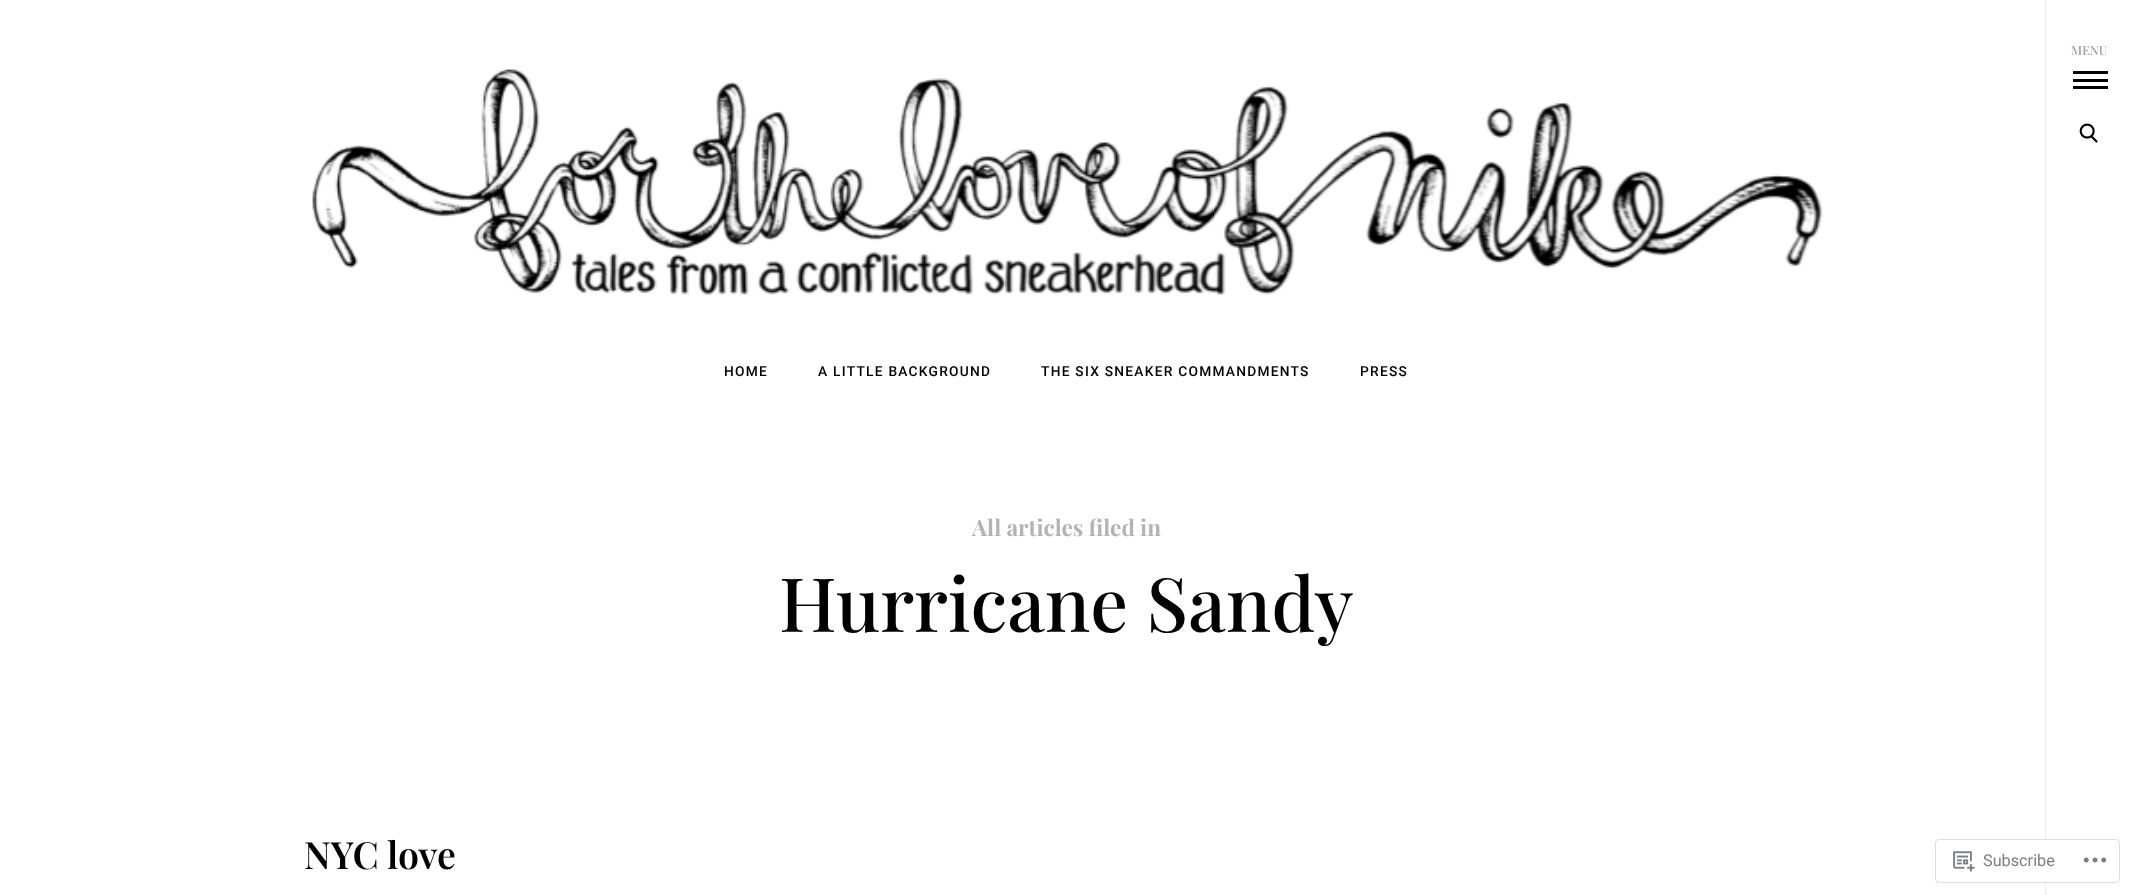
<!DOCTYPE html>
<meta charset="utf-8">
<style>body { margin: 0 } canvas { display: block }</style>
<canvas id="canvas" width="2132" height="895"></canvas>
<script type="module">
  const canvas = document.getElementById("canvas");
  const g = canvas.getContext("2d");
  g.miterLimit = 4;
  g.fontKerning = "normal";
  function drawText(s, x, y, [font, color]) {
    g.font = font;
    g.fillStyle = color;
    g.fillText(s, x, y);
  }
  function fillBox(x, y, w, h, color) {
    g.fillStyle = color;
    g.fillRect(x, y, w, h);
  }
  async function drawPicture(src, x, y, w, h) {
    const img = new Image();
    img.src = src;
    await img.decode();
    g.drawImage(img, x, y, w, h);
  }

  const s1 = ["500 12.5px Playfair Display", "#999999"];
  const s2 = ["500 13.75px Roboto", "#000000"];
  const s3 = ["bold 22.5px Playfair Display", "#B3B3B3"];
  const s4 = ["500 75px Playfair Display", "#000000"];
  const s5 = ["600 37.5px Playfair Display", "#000000"];
  const s6 = ["16.25px Roboto", "#7B7F84"];

  fillBox(0, 0, 2132, 895, "#FFFFFF");
  fillBox(2045, 0, 1, 895, "#EBEBEB");
  drawText("MENU", 2071, 55, s1);
  fillBox(2073, 71, 35, 3, "#000000");
  fillBox(2073, 79, 35, 3, "#000000");
  fillBox(2073, 86, 35, 3, "#000000");
  await drawPicture("pic1.png", 2079, 123, 19, 20);
  await drawPicture("pic2.png", 312, 69, 1511, 227);
  g.letterSpacing = "1.25px";
  drawText("HOME", 724, 376, s2);
  drawText("A LITTLE BACKGROUND", 818, 376, s2);
  drawText("THE SIX SNEAKER COMMANDMENTS", 1041, 376, s2);
  drawText("PRESS", 1360, 376, s2);
  g.letterSpacing = "0px";
  drawText("All articles filed in", 972, 536, s3);
  drawText("Hurricane Sandy", 779, 632, s4);
  drawText("NYC love", 304, 869, s5);
  g.fillStyle = "rgba(255, 255, 255, 0.98)";
  g.beginPath();
  g.roundRect(1935.5, 839.5, 184, 43, 3.5);
  g.fill();
  g.strokeStyle = "#DDDDDF";
  g.stroke();
  await drawPicture("pic3.png", 1953, 851, 22, 21);
  drawText("Subscribe", 1983, 866, s6);
  await drawPicture("pic4.png", 2083, 857, 24, 6);
</script>
